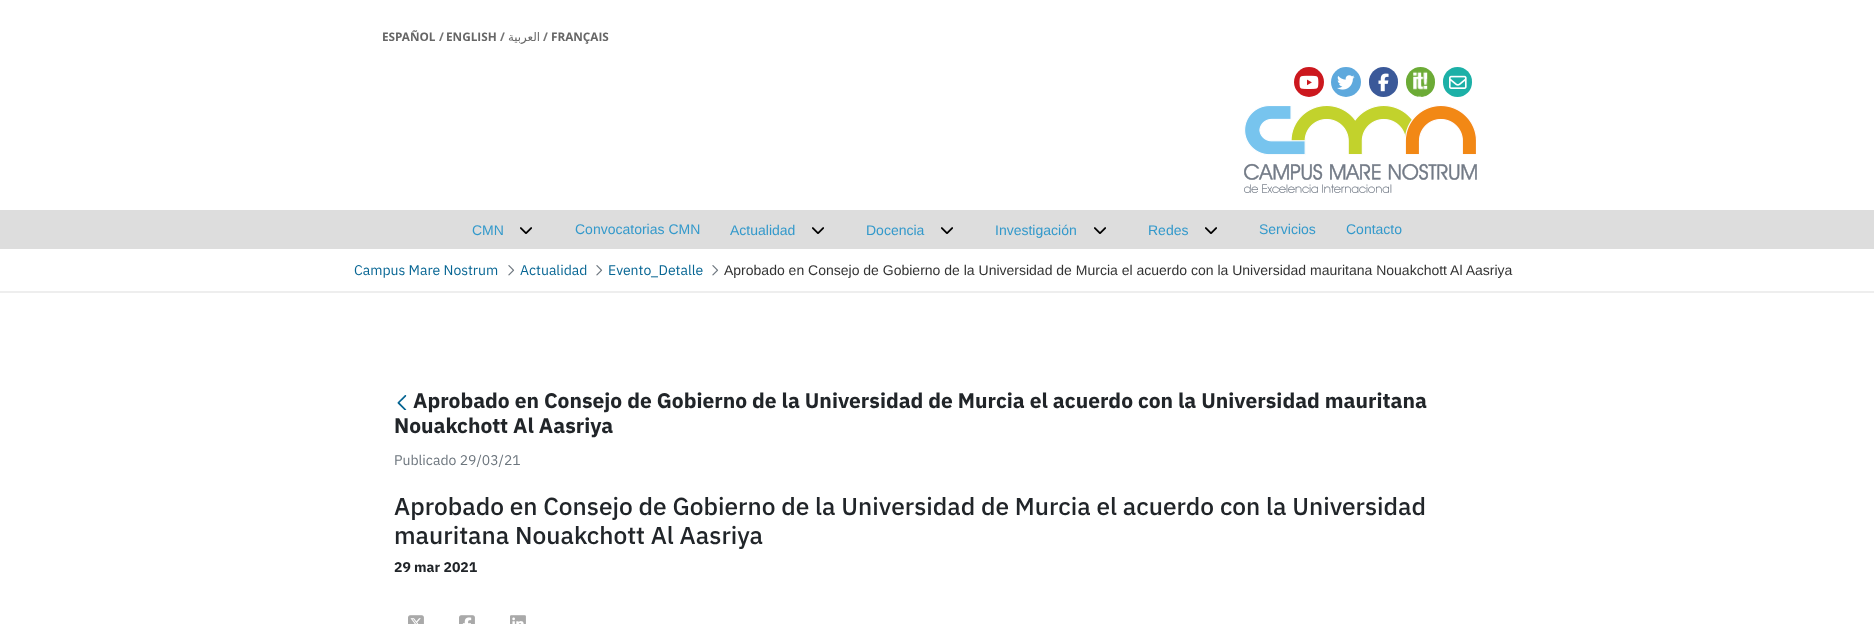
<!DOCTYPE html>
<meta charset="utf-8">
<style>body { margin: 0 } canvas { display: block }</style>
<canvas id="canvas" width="1874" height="624"></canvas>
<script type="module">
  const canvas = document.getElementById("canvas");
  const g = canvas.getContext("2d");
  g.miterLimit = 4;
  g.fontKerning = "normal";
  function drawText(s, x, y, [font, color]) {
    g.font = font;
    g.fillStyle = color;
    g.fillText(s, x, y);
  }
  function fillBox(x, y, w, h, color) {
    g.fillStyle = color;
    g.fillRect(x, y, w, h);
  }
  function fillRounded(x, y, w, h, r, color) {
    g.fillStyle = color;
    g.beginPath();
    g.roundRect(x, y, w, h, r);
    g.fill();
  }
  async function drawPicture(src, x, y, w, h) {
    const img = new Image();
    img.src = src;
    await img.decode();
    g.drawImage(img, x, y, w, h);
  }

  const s1 = ["bold 11.75px Open Sans", "#666666"];
  const s2 = ["bold 11.75px Open Sans", "#737373"];
  const s3 = ["11.75px DejaVu Sans", "#666666"];
  const s4 = ["14px Liberation Sans", "#3399CB"];
  const s5 = ["14px IBM Plex Sans", "#066593"];
  const s6 = ["14px Liberation Sans", "#333333"];
  const s7 = ["bold 21px IBM Plex Sans", "#212529"];
  const s8 = ["14px IBM Plex Sans", "#6C757D"];
  const s9 = ["500 24.5px IBM Plex Sans", "#212529"];
  const s10 = ["bold 14px IBM Plex Sans", "#212529"];

  fillBox(0, 0, 1874, 624, "#FFFFFF");
  drawText("ESPAÑOL", 382, 41, s1);
  drawText("/", 439, 41, s2);
  drawText("ENGLISH", 446, 41, s1);
  drawText("/", 500, 41, s2);
  g.direction = "rtl";
  drawText("العربية", 540, 41, s3);
  g.direction = "ltr";
  drawText("/", 543, 41, s2);
  drawText("FRANÇAIS", 551, 41, s1);
  g.fillStyle = "#CC181E";
  g.beginPath();
  g.arc(1309, 82, 15, 0, Math.PI * 2);
  g.fill();
  await drawPicture("pic1.png", 1299, 75, 20, 14);
  g.fillStyle = "#5EA9DD";
  g.beginPath();
  g.arc(1346, 82, 15, 0, Math.PI * 2);
  g.fill();
  await drawPicture("pic2.png", 1337, 75, 18, 15);
  fillRounded(1369, 67, 29, 30, 14.5, "#3B5999");
  await drawPicture("pic3.png", 1378, 73, 11, 19);
  await drawPicture("pic4.png", 1406, 67, 29, 30);
  fillRounded(1443, 67, 29, 30, 14.5, "#1CB0A7");
  await drawPicture("pic5.png", 1449, 75, 18, 14);
  await drawPicture("pic6.png", 1244, 105, 233, 88);
  fillBox(0, 210, 1874, 39, "#DDDDDD");
  drawText("CMN", 472, 235, s4);
  await drawPicture("pic7.png", 520, 227, 12, 7);
  drawText("Convocatorias CMN", 575, 234, s4);
  drawText("Actualidad", 730, 235, s4);
  await drawPicture("pic7.png", 812, 227, 12, 7);
  drawText("Docencia", 866, 235, s4);
  await drawPicture("pic7.png", 941, 227, 12, 7);
  drawText("Investigación", 995, 235, s4);
  await drawPicture("pic7.png", 1094, 227, 12, 7);
  drawText("Redes", 1148, 235, s4);
  await drawPicture("pic7.png", 1205, 227, 12, 7);
  drawText("Servicios", 1259, 234, s4);
  drawText("Contacto", 1346, 234, s4);
  drawText("Campus Mare Nostrum", 354, 275, s5);
  await drawPicture("pic8.png", 508, 265, 7, 11);
  drawText("Actualidad", 520, 275, s5);
  await drawPicture("pic8.png", 596, 265, 7, 11);
  drawText("Evento_Detalle", 608, 275, s5);
  await drawPicture("pic8.png", 712, 265, 7, 11);
  drawText("Aprobado en Consejo de Gobierno de la Universidad de Murcia el acuerdo con la Universidad mauritana Nouakchott Al Aasriya", 724, 275, s6);
  fillBox(0, 291, 1874, 2, "#EEEEEE");
  await drawPicture("pic9.png", 397, 395, 10, 15);
  drawText("Aprobado en Consejo de Gobierno de la Universidad de Murcia el acuerdo con la Universidad mauritana", 413, 408, s7);
  drawText("Nouakchott Al Aasriya", 394, 433, s7);
  drawText("Publicado 29/03/21", 394, 465, s8);
  drawText("Aprobado en Consejo de Gobierno de la Universidad de Murcia el acuerdo con la Universidad", 394, 515, s9);
  drawText("mauritana Nouakchott Al Aasriya", 394, 544, s9);
  drawText("29 mar 2021", 394, 572, s10);
  await drawPicture("pic10.png", 408, 615, 16, 9);
  await drawPicture("pic11.png", 459, 615, 16, 9);
  await drawPicture("pic12.png", 510, 615, 16, 9);
</script>
